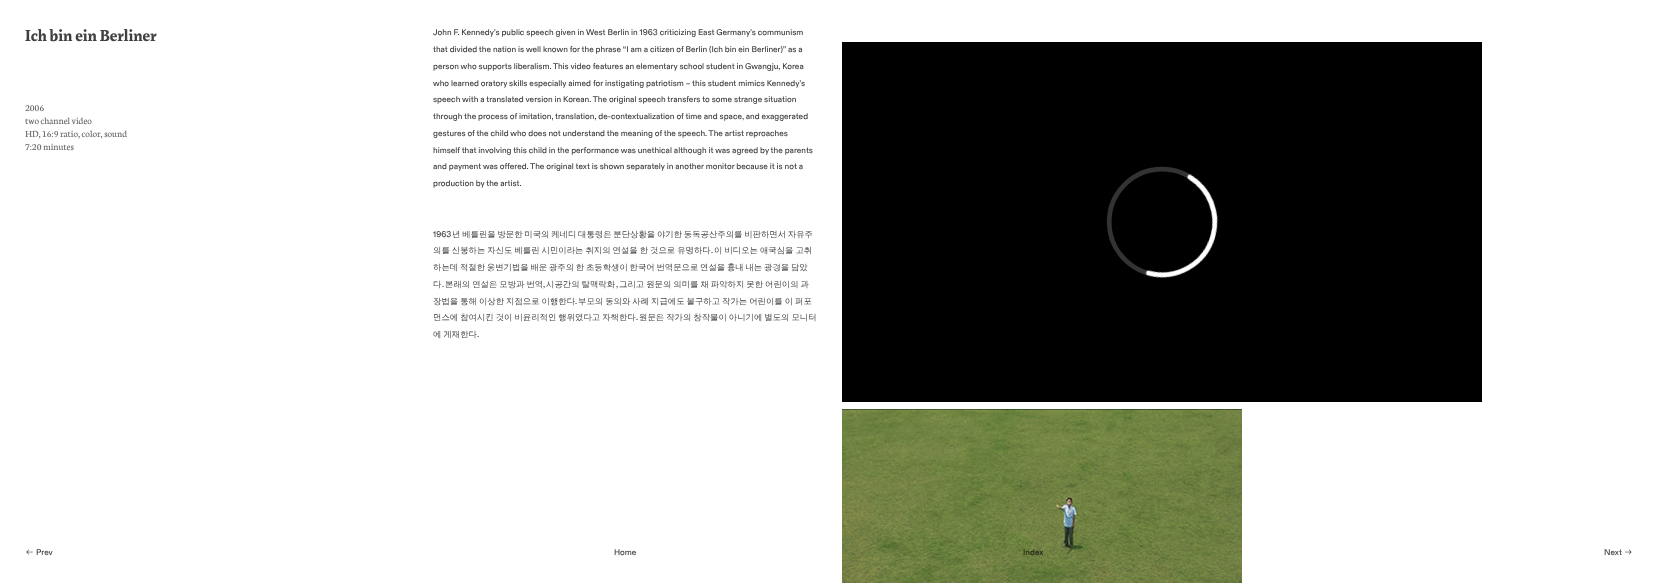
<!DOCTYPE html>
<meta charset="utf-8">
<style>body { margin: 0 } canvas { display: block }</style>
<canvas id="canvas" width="1658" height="583"></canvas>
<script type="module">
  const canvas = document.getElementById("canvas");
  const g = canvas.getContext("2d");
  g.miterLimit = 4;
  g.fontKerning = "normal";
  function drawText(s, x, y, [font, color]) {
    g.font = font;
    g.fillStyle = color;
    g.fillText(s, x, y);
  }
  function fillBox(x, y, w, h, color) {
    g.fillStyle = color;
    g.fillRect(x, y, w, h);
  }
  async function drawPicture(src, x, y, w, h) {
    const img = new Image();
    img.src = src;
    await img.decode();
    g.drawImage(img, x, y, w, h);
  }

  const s1 = ["bold 17.5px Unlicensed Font", "#404040"];
  const s2 = ["10px Neuton", "#666666"];
  const s3 = ["500 8.4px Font", "#404040"];
  const s4 = ["500 8.4px WenQuanYi Zen Hei", "#404040"];
  const s5 = ["500 8.4px Font", "#1C2011"];

  fillBox(0, 0, 1658, 583, "#FFFFFF");
  drawText("Ich bin ein Berliner", 25, 41, s1);
  drawText("2006", 25, 111, s2);
  drawText("two channel video", 25, 124, s2);
  drawText("HD, 16:9 ratio, color, sound", 25, 137, s2);
  drawText("7:20 minutes", 25, 150, s2);
  drawText("John F. Kennedy’s public speech given in West Berlin in 1963 criticizing East Germany’s communism", 433, 35, s3);
  drawText("that divided the nation is well known for the phrase “I am a citizen of Berlin (Ich bin ein Berliner)” as a", 433, 52, s3);
  drawText("person who supports liberalism. This video features an elementary school student in Gwangju, Korea", 433, 69, s3);
  drawText("who learned oratory skills especially aimed for instigating patriotism – this student mimics Kennedy’s", 433, 86, s3);
  drawText("speech with a translated version in Korean. The original speech transfers to some strange situation", 433, 102, s3);
  drawText("through the process of imitation, translation, de-contextualization of time and space, and exaggerated", 433, 119, s3);
  drawText("gestures of the child who does not understand the meaning of the speech. The artist reproaches", 433, 136, s3);
  drawText("himself that involving this child in the performance was unethical although it was agreed by the parents", 433, 153, s3);
  drawText("and payment was offered. The original text is shown separately in another monitor because it is not a", 433, 169, s3);
  drawText("production by the artist.", 433, 186, s3);
  drawText("1963", 433, 237, s3);
  g.wordSpacing = "-0.75px";
  drawText("년 베를린을 방문한 미국의 케네디 대통령은 분단상황을 야기한 동독공산주의를 비판하면서 자유주", 452, 237, s4);
  g.wordSpacing = "-0.5px";
  drawText("의를 신봉하는 자신도 베를린 시민이라는 취지의 연설을 한 것으로 유명하다", 433, 253, s4);
  g.wordSpacing = "0px";
  drawText(".", 711, 253, s3);
  g.wordSpacing = "-0.5px";
  drawText("이 비디오는 애국심을 고취", 714, 253, s4);
  g.wordSpacing = "-0.75px";
  drawText("하는데 적절한 웅변기법을 배운 광주의 한 초등학생이 한국어 번역문으로 연설을 흉내 내는 광경을 담았", 433, 270, s4);
  g.wordSpacing = "0px";
  drawText("다", 433, 287, s4);
  drawText(".", 442, 287, s3);
  g.wordSpacing = "-0.5px";
  drawText("본래의 연설은 모방과 번역", 445, 287, s4);
  g.wordSpacing = "0px";
  drawText(",", 543, 287, s3);
  g.wordSpacing = "-0.5px";
  drawText("시공간의 탈맥락화", 546, 287, s4);
  g.wordSpacing = "0px";
  drawText(",", 616, 287, s3);
  g.wordSpacing = "-0.5px";
  drawText("그리고 원문의 의미를 채 파악하지 못한 어린이의 과", 619, 287, s4);
  drawText("장법을 통해 이상한 지점으로 이행한다", 433, 304, s4);
  drawText("부모의 동의와 사례 지급에도 불구하고 작가는 어린이를 이 퍼포", 578, 304, s4);
  g.wordSpacing = "0px";
  drawText(".", 575, 304, s3);
  g.wordSpacing = "-0.5px";
  drawText("먼스에 참여시킨 것이 비윤리적인 행위였다고 자책한다", 433, 320, s4);
  g.wordSpacing = "0px";
  drawText(".", 636, 320, s3);
  g.wordSpacing = "-0.5px";
  drawText("원문은 작가의 창작물이 아니기에 별도의 모니터", 639, 320, s4);
  drawText("에 게재한다", 433, 337, s4);
  g.wordSpacing = "0px";
  drawText(".", 477, 337, s3);
  await drawPicture("pic1.png", 842, 42, 640, 360);
  await drawPicture("pic2.png", 842, 409, 400, 174);
  await drawPicture("pic3.png", 26, 549, 7, 6);
  drawText("Prev", 36, 555, s3);
  drawText("Home", 614, 555, s3);
  drawText("Index", 1023, 555, s5);
  drawText("Next", 1604, 555, s3);
  await drawPicture("pic4.png", 1625, 549, 7, 6);
</script>
